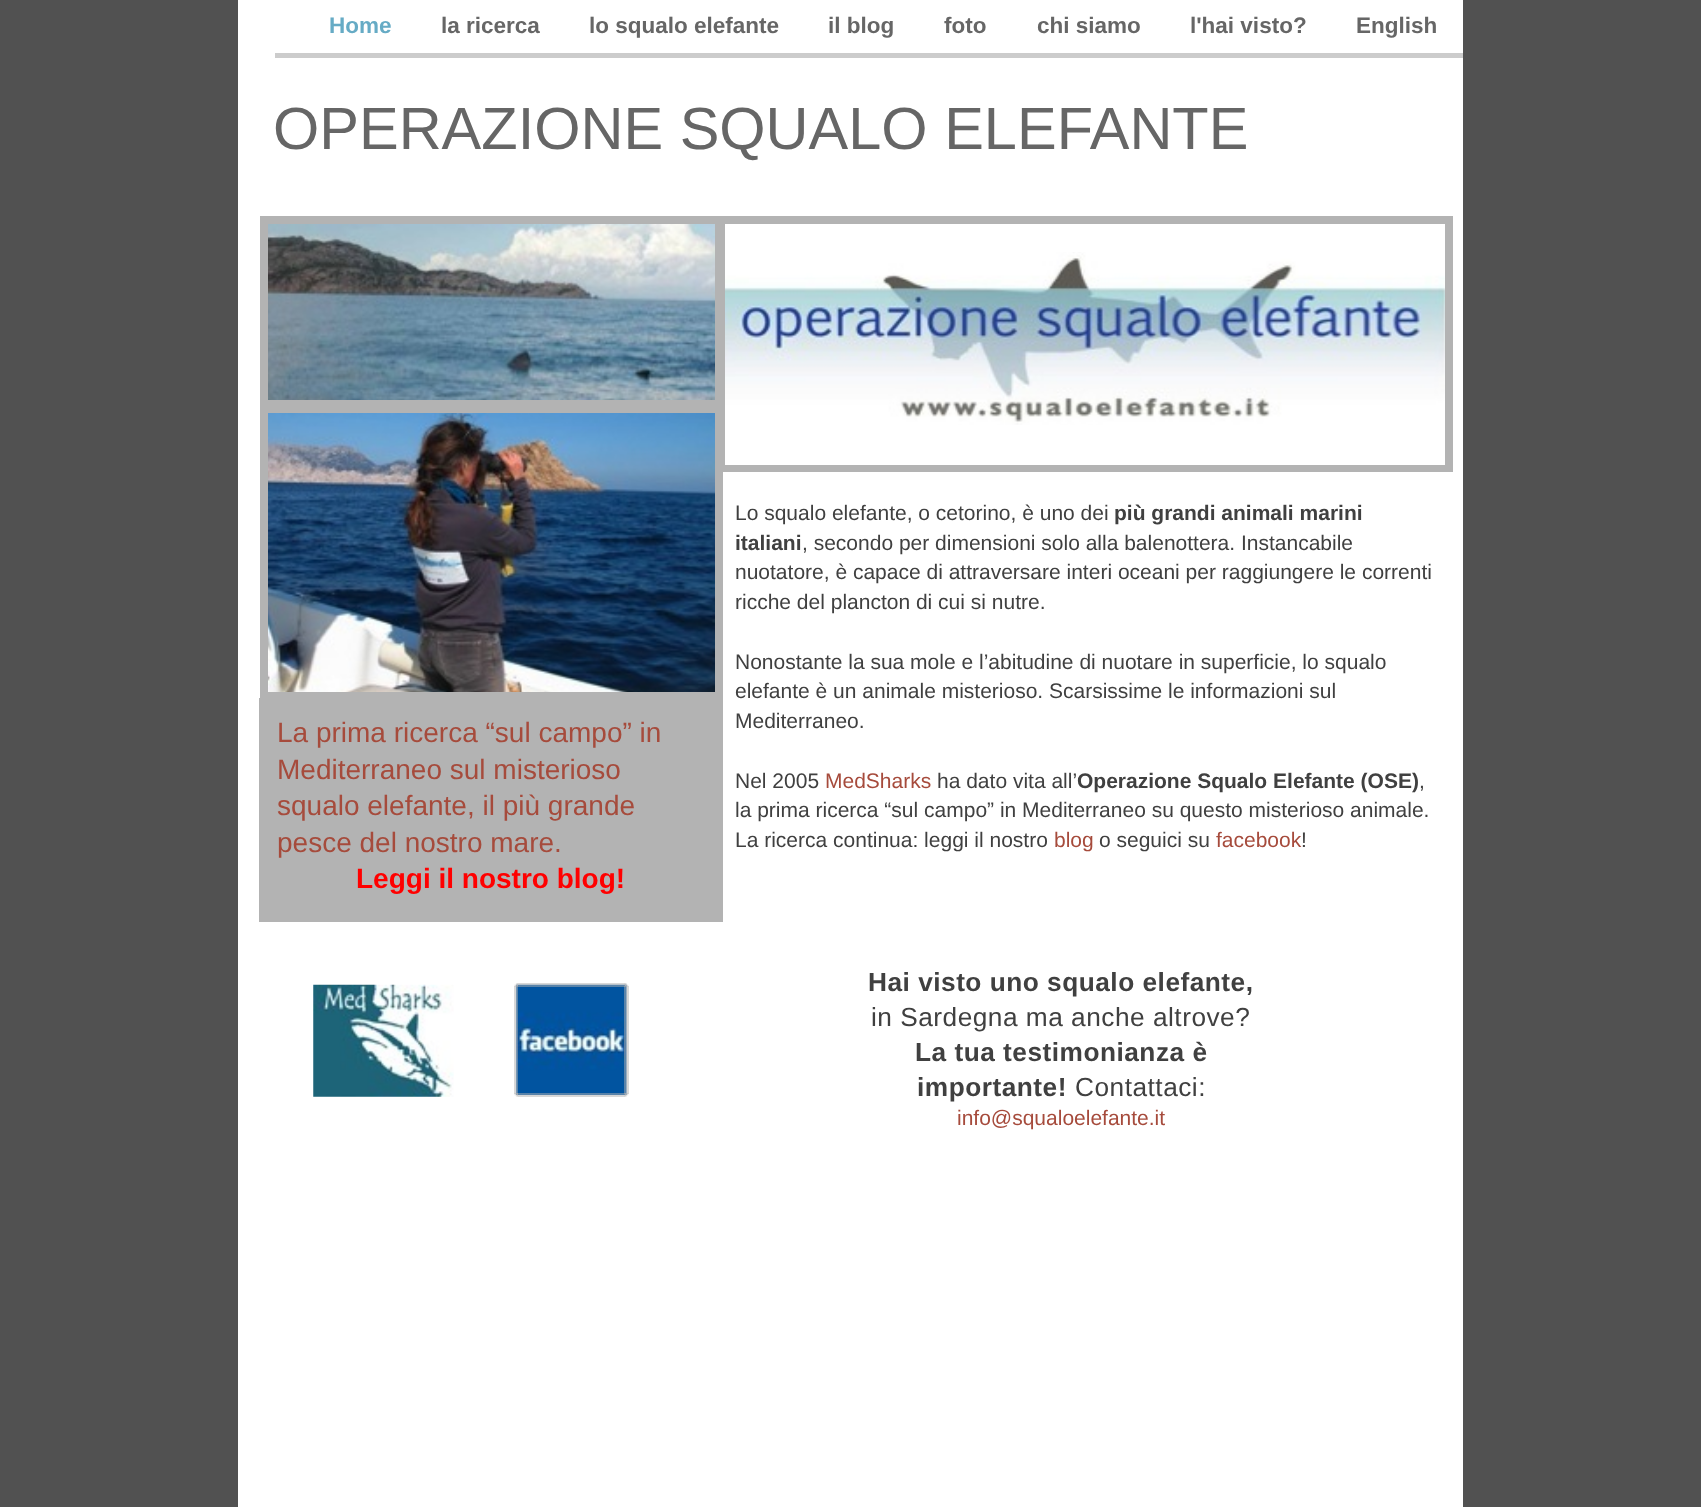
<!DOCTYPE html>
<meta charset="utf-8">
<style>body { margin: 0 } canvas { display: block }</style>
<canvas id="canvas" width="1701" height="1507"></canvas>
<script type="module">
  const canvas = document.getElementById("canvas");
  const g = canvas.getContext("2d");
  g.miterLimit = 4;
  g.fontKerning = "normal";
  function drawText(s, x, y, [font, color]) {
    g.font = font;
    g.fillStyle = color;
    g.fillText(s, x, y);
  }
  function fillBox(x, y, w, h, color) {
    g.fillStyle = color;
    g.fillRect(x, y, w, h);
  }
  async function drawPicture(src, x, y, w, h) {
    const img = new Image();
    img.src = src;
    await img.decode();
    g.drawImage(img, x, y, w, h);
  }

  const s1 = ["bold 22.5px Liberation Sans", "#66ABC5"];
  const s2 = ["bold 22.5px Liberation Sans", "#666666"];
  const s3 = ["59.5px Liberation Sans", "#666666"];
  const s4 = ["21px Liberation Sans", "#404040"];
  const s5 = ["bold 21px Liberation Sans", "#404040"];
  const s6 = ["21px Liberation Sans", "#A64B3C"];
  const s7 = ["28px Liberation Sans", "#A64B3C"];
  const s8 = ["bold 28px Liberation Sans", "#FF0000"];
  const s9 = ["bold 26.25px Liberation Sans", "#404040"];
  const s10 = ["26.25px Liberation Sans", "#404040"];

  fillBox(0, 0, 1701, 1507, "#515151");
  fillBox(238, 0, 1225, 1507, "#FFFFFF");
  fillBox(275, 53, 1188, 5, "#CCCCCC");
  drawText("Home", 329, 33, s1);
  drawText("la ricerca", 441, 33, s2);
  drawText("lo squalo elefante", 589, 33, s2);
  drawText("il blog", 828, 33, s2);
  drawText("foto", 944, 33, s2);
  drawText("chi siamo", 1037, 33, s2);
  drawText("l'hai visto?", 1190, 33, s2);
  drawText("English", 1356, 33, s2);
  drawText("OPERAZIONE SQUALO ELEFANTE", 273, 149, s3);
  fillBox(260, 216, 8, 185, "#B3B3B3");
  fillBox(717, 216, 8, 7, "#B3B3B3");
  fillBox(268, 216, 452, 8, "#B3B3B3");
  await drawPicture("pic1.png", 268, 224, 447, 176);
  fillBox(715, 224, 5, 181, "#B3B3B3");
  fillBox(260, 401, 7, 4, "#B3B3B3");
  fillBox(267, 400, 448, 5, "#B3B3B3");
  fillBox(725, 216, 728, 8, "#B3B3B3");
  fillBox(720, 223, 5, 242, "#B3B3B3");
  await drawPicture("pic2.png", 725, 252, 720, 173);
  fillBox(1445, 224, 8, 248, "#B3B3B3");
  fillBox(717, 465, 728, 7, "#B3B3B3");
  fillBox(260, 405, 8, 288, "#B3B3B3");
  fillBox(268, 405, 452, 8, "#B3B3B3");
  await drawPicture("pic3.png", 268, 413, 447, 279);
  fillBox(715, 413, 8, 285, "#B3B3B3");
  fillBox(260, 693, 7, 5, "#B3B3B3");
  fillBox(267, 692, 448, 6, "#B3B3B3");
  drawText("Lo squalo elefante, o cetorino, è uno dei", 735, 520, s4);
  drawText("più grandi animali marini", 1114, 520, s5);
  drawText("italiani", 735, 550, s5);
  drawText(", secondo per dimensioni solo alla balenottera. Instancabile", 802, 550, s4);
  drawText("nuotatore, è capace di attraversare interi oceani per raggiungere le correnti", 735, 579, s4);
  drawText("ricche del plancton di cui si nutre.", 735, 609, s4);
  drawText("Nonostante la sua mole e l’abitudine di nuotare in superficie, lo squalo", 735, 669, s4);
  drawText("elefante è un animale misterioso. Scarsissime le informazioni sul", 735, 698, s4);
  drawText("Mediterraneo.", 735, 728, s4);
  drawText("Nel 2005", 735, 788, s4);
  drawText("MedSharks", 825, 788, s6);
  drawText("ha dato vita all’", 937, 788, s4);
  drawText("Operazione Squalo Elefante (OSE)", 1077, 788, s5);
  drawText(",", 1419, 788, s4);
  drawText("la prima ricerca “sul campo” in Mediterraneo su questo misterioso animale.", 735, 817, s4);
  drawText("La ricerca continua: leggi il nostro", 735, 847, s4);
  drawText("blog", 1054, 847, s6);
  drawText("o seguici su", 1099, 847, s4);
  drawText("facebook", 1216, 847, s6);
  drawText("!", 1301, 847, s4);
  fillBox(259, 698, 464, 224, "#B3B3B3");
  drawText("La prima ricerca “sul campo” in", 277, 742, s7);
  drawText("Mediterraneo sul misterioso", 277, 779, s7);
  drawText("squalo elefante, il più grande", 277, 815, s7);
  drawText("pesce del nostro mare.", 277, 852, s7);
  drawText("Leggi il nostro blog!", 356, 888, s8);
  await drawPicture("pic4.png", 313, 984, 141, 113);
  await drawPicture("pic7.png", 516, 984, 111, 111);
  fillBox(514, 986, 4, 108, "rgba(178, 178, 178, 0.5)");
  await drawPicture("pic5.png", 514, 983, 4, 4);
  fillBox(518, 983, 107, 4, "rgba(178, 178, 178, 0.5)");
  await drawPicture("pic6.png", 624, 983, 5, 4);
  fillBox(624, 986, 5, 108, "rgba(178, 178, 178, 0.5)");
  await drawPicture("pic8.png", 514, 1093, 4, 4);
  await drawPicture("pic9.png", 624, 1093, 5, 4);
  fillBox(518, 1093, 107, 4, "rgba(178, 178, 178, 0.5)");
  g.letterSpacing = "0.5px";
  drawText("Hai visto uno squalo elefante,", 868, 991, s9);
  drawText("in Sardegna ma anche altrove?", 871, 1026, s10);
  drawText("La tua testimonianza è", 915, 1061, s9);
  drawText("importante!", 917, 1096, s9);
  drawText("Contattaci:", 1075, 1096, s10);
  g.letterSpacing = "0px";
  drawText("info@squaloelefante.it", 957, 1125, s6);
</script>
